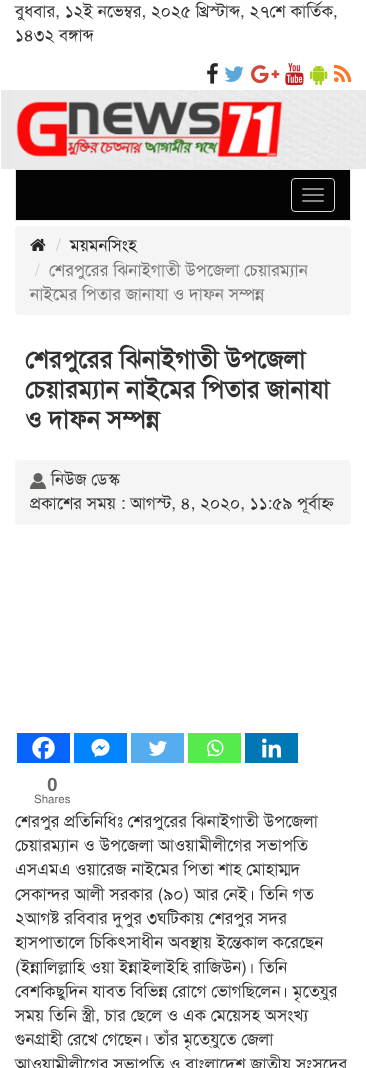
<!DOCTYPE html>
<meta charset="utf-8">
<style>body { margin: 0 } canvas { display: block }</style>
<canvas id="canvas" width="366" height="1068"></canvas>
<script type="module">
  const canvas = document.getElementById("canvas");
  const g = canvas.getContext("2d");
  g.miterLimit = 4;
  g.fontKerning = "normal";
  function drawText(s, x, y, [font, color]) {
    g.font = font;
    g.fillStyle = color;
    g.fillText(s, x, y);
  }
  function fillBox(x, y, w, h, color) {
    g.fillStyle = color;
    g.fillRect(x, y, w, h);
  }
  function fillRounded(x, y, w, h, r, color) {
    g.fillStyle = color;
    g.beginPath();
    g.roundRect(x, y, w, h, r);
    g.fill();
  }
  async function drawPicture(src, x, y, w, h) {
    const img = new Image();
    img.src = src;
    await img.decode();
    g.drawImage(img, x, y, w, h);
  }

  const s1 = ["17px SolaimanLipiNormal", "#333333"];
  const s2 = ["17px SolaimanLipiNormal", "#CCCCCC"];
  const s3 = ["17px SolaimanLipiNormal", "#272727"];
  const s4 = ["17px SolaimanLipiNormal", "#777777"];
  const s5 = ["bold 25px SolaimanLipiNormal", "#333333"];
  const s6 = ["bold 19px Liberation Sans", "#666666"];
  const s7 = ["11.5px SolaimanLipiNormal", "#666666"];

  fillBox(0, 0, 366, 1068, "#FFFFFF");
  drawText("বুধবার, ১২ই নভেম্বর, ২০২৫ খ্রিস্টাব্দ, ২৭শে কার্তিক,", 15, 17, s1);
  drawText("১৪৩২ বঙ্গাব্দ", 15, 41, s1);
  await drawPicture("pic1.png", 207, 63, 11, 21);
  await drawPicture("pic2.png", 224, 66, 20, 16);
  await drawPicture("pic3.png", 251, 65, 29, 19);
  await drawPicture("pic4.png", 285, 63, 19, 23);
  await drawPicture("pic5.png", 310, 64, 18, 22);
  await drawPicture("pic6.png", 334, 64, 18, 18);
  await drawPicture("pic7.png", 1, 90, 365, 79);
  await drawPicture("pic8.png", 16, 101, 267, 56);
  g.fillStyle = "#040404";
  g.beginPath();
  g.rect(15.5, 169.5, 335, 51);
  g.fill();
  g.strokeStyle = "#E7E7E7";
  g.stroke();
  g.beginPath();
  g.roundRect(291.5, 178.5, 43, 33, 3.5);
  g.strokeStyle = "#DDDDDD";
  g.stroke();
  fillRounded(302, 188, 22, 2, 1, "#888888");
  fillRounded(302, 194, 22, 2, 1, "#888888");
  fillRounded(302, 200, 22, 2, 1, "#888888");
  fillRounded(15, 226, 336, 89, 4, "#F5F5F5");
  await drawPicture("pic9.png", 30, 238, 16, 13);
  drawText("/", 56, 251, s2);
  drawText("ময়মনসিংহ", 70, 251, s3);
  drawText("/", 35, 276, s2);
  drawText("শেরপুরের ঝিনাইগাতী উপজেলা চেয়ারম্যান", 49, 276, s4);
  drawText("নাইমের পিতার জানাযা ও দাফন সম্পন্ন", 30, 300, s4);
  drawText("শেরপুরের ঝিনাইগাতী উপজেলা", 25, 368, s5);
  drawText("চেয়ারম্যান নাইমের পিতার জানাযা", 25, 398, s5);
  drawText("ও দাফন সম্পন্ন", 25, 428, s5);
  fillRounded(15, 460, 336, 65, 4, "#F5F5F5");
  await drawPicture("pic10.png", 30, 473, 16, 16);
  drawText("নিউজ ডেস্ক", 51, 485, s1);
  drawText("প্রকাশের সময় : আগস্ট, ৪, ২০২০, ১১:৫৯ পূর্বাহ্ণ", 30, 509, s1);
  fillBox(17, 733, 53, 30, "#0765FE");
  await drawPicture("pic11.png", 32, 736, 23, 24);
  fillBox(74, 733, 53, 30, "#0084FF");
  await drawPicture("pic12.png", 91, 738, 19, 20);
  fillBox(131, 733, 53, 30, "#55ACEE");
  await drawPicture("pic13.png", 148, 740, 19, 16);
  fillBox(188, 733, 53, 30, "#55EB4C");
  await drawPicture("pic14.png", 207, 739, 17, 18);
  fillBox(245, 733, 53, 30, "#0077B5");
  await drawPicture("pic15.png", 262, 738, 19, 20);
  drawText("0", 47, 791, s6);
  drawText("Shares", 34, 803, s7);
  drawText("শেরপুর প্রতিনিধিঃ শেরপুরের ঝিনাইগাতী উপজেলা", 15, 827, s1);
  drawText("চেয়ারম্যান ও উপজেলা আওয়ামীলীগের সভাপতি", 15, 851, s1);
  drawText("এসএমএ ওয়ারেজ নাইমের পিতা শাহ মোহাম্মদ", 15, 875, s1);
  drawText("সেকান্দর আলী সরকার (৯০) আর নেই। তিনি গত", 15, 900, s1);
  drawText("২আগষ্ট রবিবার দুপুর ৩ঘটিকায় শেরপুর সদর", 15, 924, s1);
  drawText("হাসপাতালে চিকিৎসাধীন অবস্থায় ইন্তেকাল করেছেন", 15, 948, s1);
  drawText("(ইন্নালিল্লাহি ওয়া ইন্নাইলাইহি রাজিউন)। তিনি", 15, 973, s1);
  drawText("বেশকিছুদিন যাবত বিভিন্ন রোগে ভোগছিলেন। মৃতে্যুর", 15, 997, s1);
  drawText("সময় তিনি স্ত্রী, চার ছেলে ও এক মেয়েসহ অসংখ্য", 15, 1021, s1);
  drawText("গুনগ্রাহী রেখে গেছেন। তাঁর মৃতে্যুতে জেলা", 15, 1045, s1);
  drawText("আওয়ামীলীগের সভাপতি ও বাংলাদেশ জাতীয় সংসদের", 15, 1070, s1);
</script>
